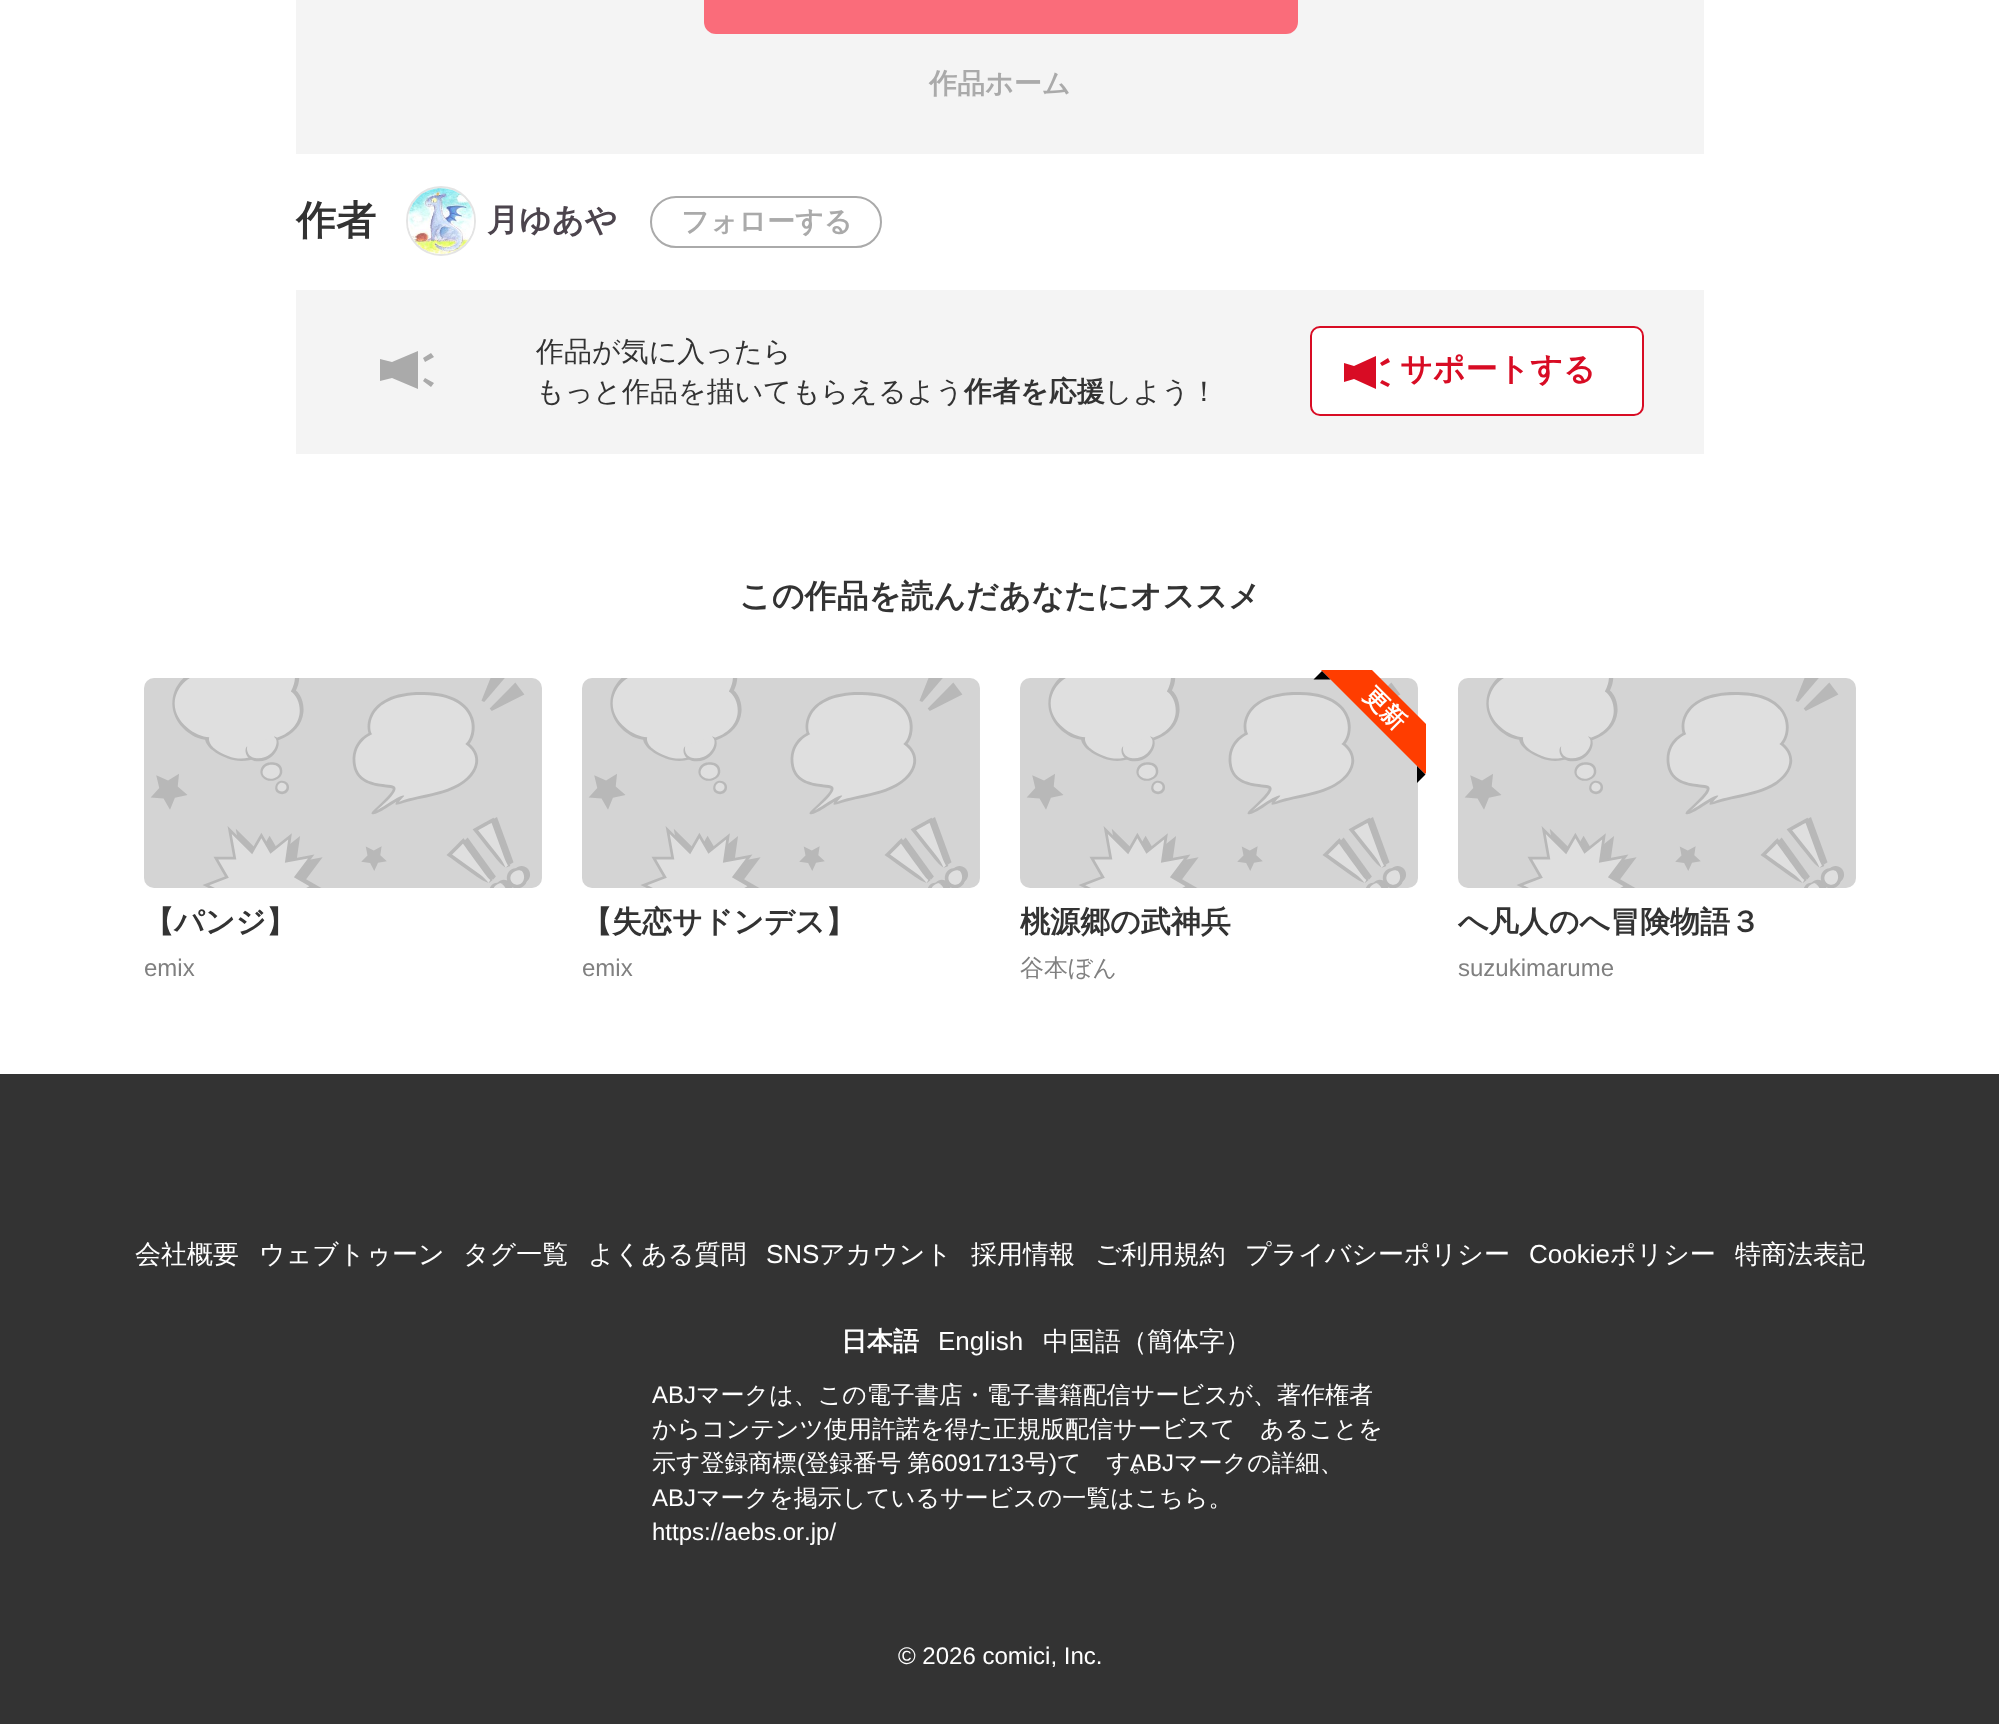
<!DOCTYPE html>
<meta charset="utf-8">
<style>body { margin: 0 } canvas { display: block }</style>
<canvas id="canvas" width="1999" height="1733"></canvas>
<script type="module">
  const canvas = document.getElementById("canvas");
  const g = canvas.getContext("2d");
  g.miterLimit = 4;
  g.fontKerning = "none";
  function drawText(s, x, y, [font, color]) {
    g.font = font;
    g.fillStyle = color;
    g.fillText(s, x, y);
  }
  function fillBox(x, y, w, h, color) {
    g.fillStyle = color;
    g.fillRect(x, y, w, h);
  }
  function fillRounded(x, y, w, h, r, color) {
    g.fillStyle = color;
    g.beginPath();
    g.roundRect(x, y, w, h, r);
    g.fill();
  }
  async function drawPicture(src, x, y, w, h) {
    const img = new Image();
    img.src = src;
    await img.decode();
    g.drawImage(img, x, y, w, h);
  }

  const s1 = ["bold 28px WenQuanYi Zen Hei", "#AAAAAA"];
  const s2 = ["bold 40px WenQuanYi Zen Hei", "#333333"];
  const s3 = ["bold 32px WenQuanYi Zen Hei", "#4C444D"];
  const s4 = ["500 28px WenQuanYi Zen Hei", "#333333"];
  const s5 = ["bold 28px WenQuanYi Zen Hei", "#333333"];
  const s6 = ["bold 32px WenQuanYi Zen Hei", "#D80C24"];
  const s7 = ["bold 32px WenQuanYi Zen Hei", "#333333"];
  const s8 = ["bold 30px WenQuanYi Zen Hei", "#333333"];
  const s9 = ["24px Liberation Sans", "#808080"];
  const s10 = ["500 24px WenQuanYi Zen Hei", "#808080"];
  const s11 = ["500 26px WenQuanYi Zen Hei", "#FFFFFF"];
  const s12 = ["26px Liberation Sans", "#FFFFFF"];
  const s13 = ["bold 26px WenQuanYi Zen Hei", "#FFFFFF"];
  const s14 = ["24px Liberation Sans", "#FFFFFF"];
  const s15 = ["500 24px WenQuanYi Zen Hei", "#FFFFFF"];

  fillBox(0, 0, 1999, 1733, "#FFFFFF");
  fillBox(296, 0, 1408, 154, "#F4F4F4");
  fillRounded(704, -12, 594, 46, 12, "#FA6C7A");
  drawText("作品ホーム", 929, 93, s1);
  drawText("作者", 296, 234, s2);
  g.beginPath();
  g.arc(441, 221, 34, 0, Math.PI * 2);
  g.strokeStyle = "#E4E4E4";
  g.lineWidth = 2;
  g.stroke();
  await drawPicture("pic1.png", 408, 188, 66, 66);
  drawText("月ゆあや", 487, 231, s3);
  g.beginPath();
  g.roundRect(651, 197, 230, 50, 25);
  g.strokeStyle = "#AAAAAA";
  g.stroke();
  drawText("フォローする", 681, 231, s1);
  fillBox(296, 290, 1408, 164, "#F4F4F4");
  g.fillStyle = "#AAAAAA";
  g.beginPath();
  g.moveTo(392, 362);
  g.lineTo(380, 359);
  g.lineTo(380, 381);
  g.lineTo(392, 378);
  g.lineTo(418, 389);
  g.lineTo(418, 351);
  g.closePath();
  g.moveTo(423, 358);
  g.lineTo(431, 353);
  g.lineTo(434, 357);
  g.lineTo(425, 362);
  g.closePath();
  g.moveTo(423, 381);
  g.lineTo(425, 378);
  g.lineTo(434, 383);
  g.lineTo(431, 387);
  g.closePath();
  g.fill();
  drawText("作品が気に入ったら", 536, 361, s4);
  drawText("もっと作品を描いてもらえるよう", 536, 401, s4);
  drawText("作者を応援", 964, 401, s5);
  drawText("しよう！", 1104, 401, s4);
  g.fillStyle = "#FFFFFF";
  g.beginPath();
  g.roundRect(1311, 327, 332, 88, 9);
  g.fill();
  g.strokeStyle = "#D80C24";
  g.stroke();
  g.fillStyle = "#D80C24";
  g.beginPath();
  g.moveTo(1354, 366);
  g.lineTo(1344, 363);
  g.lineTo(1344, 382);
  g.lineTo(1354, 379);
  g.lineTo(1376, 389);
  g.lineTo(1376, 356);
  g.closePath();
  g.moveTo(1380, 363);
  g.lineTo(1388, 358);
  g.lineTo(1390, 362);
  g.lineTo(1382, 366);
  g.closePath();
  g.moveTo(1380, 383);
  g.lineTo(1382, 380);
  g.lineTo(1390, 384);
  g.lineTo(1388, 387);
  g.closePath();
  g.fill();
  drawText("サポートする", 1400, 380, s6);
  drawText("この作品を読んだあなたにオススメ", 739, 607, s7);
  await drawPicture("pic2.png", 144, 678, 398, 210);
  drawText("【パンジ】", 144, 932, s8);
  drawText("emix", 144, 976, s9);
  await drawPicture("pic3.png", 582, 678, 398, 210);
  drawText("【失恋サドンデス】", 582, 932, s8);
  drawText("emix", 582, 976, s9);
  await drawPicture("pic4.png", 1020, 678, 398, 210);
  g.save();
  g.beginPath();
  g.rect(1310, 670, 116, 116);
  g.clip();
  g.fillStyle = "#FF3D00";
  g.beginPath();
  g.moveTo(1345, 643);
  g.lineTo(1451, 749);
  g.lineTo(1425, 774);
  g.lineTo(1319, 668);
  g.closePath();
  g.fill();
  g.restore();
  g.fillStyle = "#000000";
  g.beginPath();
  g.moveTo(1322, 671);
  g.lineTo(1330.5, 679.5);
  g.lineTo(1313.5, 679.5);
  g.closePath();
  g.fill();
  g.font = "bold 24px WenQuanYi Zen Hei";
  g.fillStyle = "#FFFFFF";
  g.save();
  g.translate(1362, 697);
  g.rotate(45 * Math.PI / 180);
  g.fillText("更新", 0, 0);
  g.restore();
  g.fillStyle = "#000000";
  g.beginPath();
  g.moveTo(1425.5, 774.5);
  g.lineTo(1417, 783);
  g.lineTo(1417, 766);
  g.closePath();
  g.fill();
  drawText("桃源郷の武神兵", 1020, 932, s8);
  drawText("谷本ぼん", 1020, 976, s10);
  await drawPicture("pic5.png", 1458, 678, 398, 210);
  drawText("へ凡人のへ冒険物語３", 1458, 932, s8);
  drawText("suzukimarume", 1458, 976, s9);
  fillBox(0, 1074, 1999, 650, "#333333");
  drawText("会社概要", 135, 1263, s11);
  drawText("ウェブトゥーン", 259, 1263, s11);
  drawText("タグ一覧", 463, 1263, s11);
  drawText("よくある質問", 588, 1263, s11);
  drawText("SNS", 766, 1263, s12);
  drawText("アカウント", 819, 1263, s11);
  drawText("採用情報", 971, 1263, s11);
  drawText("ご利用規約", 1095, 1263, s11);
  drawText("プライバシーポリシー", 1245, 1263, s11);
  drawText("Cookie", 1529, 1263, s12);
  drawText("ポリシー", 1610, 1263, s11);
  drawText("特商法表記", 1735, 1263, s11);
  drawText("日本語", 841, 1350, s13);
  drawText("English", 938, 1350, s12);
  drawText("中国語（簡体字）", 1043, 1350, s11);
  drawText("ABJ", 652, 1403, s14);
  drawText("マークは、この電子書店・電子書籍配信サービスが、著作権者", 696, 1403, s15);
  drawText("からコンテンツ使用許諾を得た正規版配信サービスであることを", 652, 1437, s15);
  drawText("示す登録商標", 652, 1471, s15);
  drawText("(", 797, 1471, s14);
  g.wordSpacing = "-1px";
  drawText("登録番号 第", 805, 1471, s15);
  g.wordSpacing = "0px";
  drawText("6091713", 931, 1471, s14);
  drawText("号", 1025, 1471, s15);
  drawText(")", 1049, 1471, s14);
  drawText("です。", 1057, 1471, s15);
  drawText("ABJ", 1130, 1471, s14);
  drawText("マークの詳細、", 1174, 1471, s15);
  drawText("ABJ", 652, 1506, s14);
  drawText("マークを掲示しているサービスの一覧はこちら。", 696, 1506, s15);
  drawText("https://aebs.or.jp/", 652, 1540, s14);
  drawText("© 2026 comici, Inc.", 898, 1664, s14);
</script>
